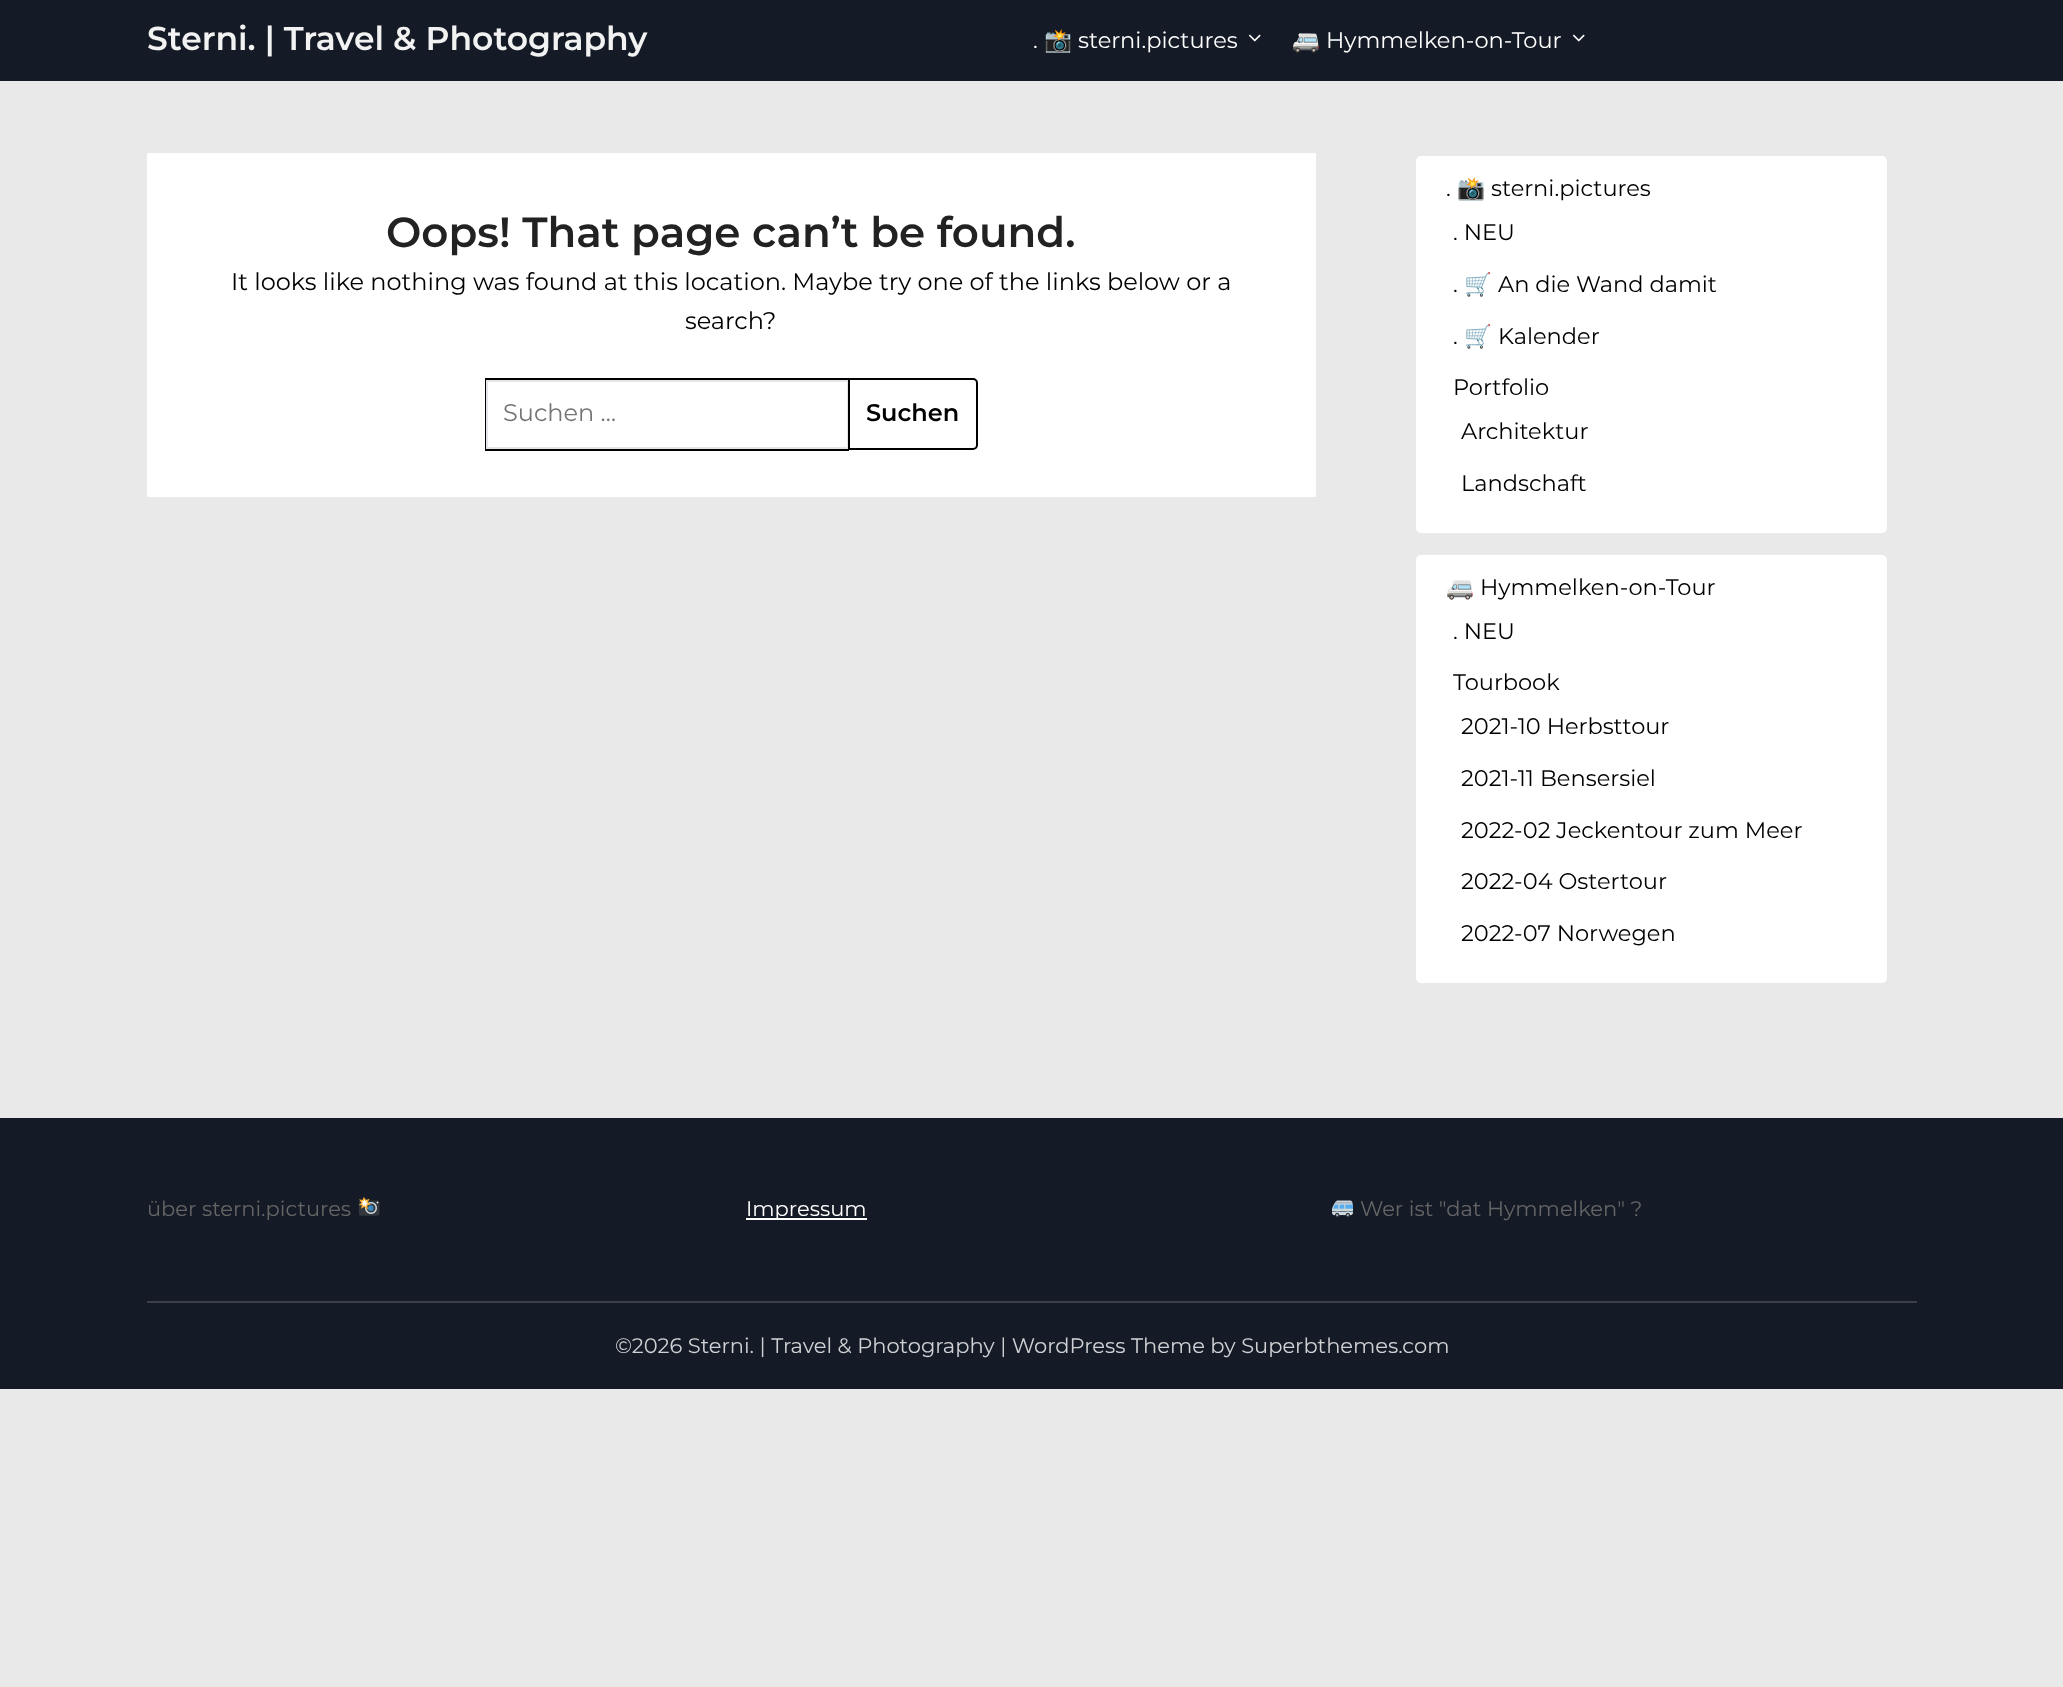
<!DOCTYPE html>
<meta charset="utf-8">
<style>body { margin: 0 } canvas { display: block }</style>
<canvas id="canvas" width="2063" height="1687"></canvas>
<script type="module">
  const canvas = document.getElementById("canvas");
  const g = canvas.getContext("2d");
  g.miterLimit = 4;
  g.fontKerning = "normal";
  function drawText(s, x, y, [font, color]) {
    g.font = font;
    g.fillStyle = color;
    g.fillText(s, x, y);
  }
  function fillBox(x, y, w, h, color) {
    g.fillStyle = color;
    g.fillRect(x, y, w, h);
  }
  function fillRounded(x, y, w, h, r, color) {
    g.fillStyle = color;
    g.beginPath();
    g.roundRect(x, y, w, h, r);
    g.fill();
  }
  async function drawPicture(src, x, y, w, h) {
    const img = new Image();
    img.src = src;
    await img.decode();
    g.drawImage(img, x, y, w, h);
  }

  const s1 = ["600 33px Montserrat", "#F2F2F2"];
  const s2 = ["22.5px Montserrat", "#FFFFFF"];
  const s3 = ["22.5px Noto Color Emoji", "#FFFFFF"];
  const s4 = ["600 42px Montserrat", "#222222"];
  const s5 = ["24px Montserrat", "#000000"];
  const s6 = ["24px Montserrat", "#757575"];
  const s7 = ["600 24px Montserrat", "#000000"];
  const s8 = ["22.5px Montserrat", "#000000"];
  const s9 = ["22.5px Noto Color Emoji", "#000000"];
  const s10 = ["21px Montserrat", "#656565"];
  const s11 = ["21px Montserrat", "#FFFFFF"];
  const s12 = ["21px Montserrat", "#D0D1D4"];

  fillBox(0, 0, 2063, 1687, "#E9E9E9");
  fillBox(0, 0, 2063, 81, "#151B26");
  drawText("Sterni. | Travel & Photography", 147, 50, s1);
  drawText(".", 1033, 48, s2);
  drawText("📸", 1044, 48, s3);
  drawText("sterni.pictures", 1078, 48, s2);
  await drawPicture("pic1.png", 1248, 34, 13, 8);
  drawText("🚐", 1292, 48, s3);
  drawText("Hymmelken-on-Tour", 1326, 48, s2);
  await drawPicture("pic1.png", 1572, 34, 13, 8);
  fillRounded(147, 153, 1169, 344, 1.5, "#FFFFFF");
  drawText("Oops! That page can’t be found.", 386, 247, s4);
  drawText("It looks like nothing was found at this location. Maybe try one of the links below or a", 231, 290, s5);
  drawText("search?", 685, 329, s5);
  fillBox(485, 378, 364, 2, "#000000");
  fillBox(485, 449, 364, 2, "#000000");
  fillBox(485, 378, 2, 72, "#000000");
  g.strokeStyle = "#E5E6E9";
  g.lineWidth = 2;
  g.strokeRect(487, 381, 361, 67);
  drawText("Suchen …", 503, 421, s6);
  g.beginPath();
  g.roundRect(849, 379, 128, 70, [0, 4, 4, 0]);
  g.strokeStyle = "#000000";
  g.stroke();
  drawText("Suchen", 866, 421, s7);
  fillRounded(1416, 156, 471, 377, 5, "#FFFFFF");
  drawText(".", 1446, 196, s8);
  drawText("📸", 1457, 196, s9);
  drawText("sterni.pictures", 1491, 196, s8);
  drawText(". NEU", 1453, 240, s8);
  drawText(".", 1453, 292, s8);
  drawText("🛒", 1464, 292, s9);
  drawText("An die Wand damit", 1498, 292, s8);
  drawText(".", 1453, 344, s8);
  drawText("🛒", 1464, 344, s9);
  drawText("Kalender", 1498, 344, s8);
  drawText("Portfolio", 1453, 395, s8);
  drawText("Architektur", 1461, 439, s8);
  drawText("Landschaft", 1461, 491, s8);
  fillRounded(1416, 555, 471, 428, 5, "#FFFFFF");
  drawText("🚐", 1446, 595, s9);
  drawText("Hymmelken-on-Tour", 1480, 595, s8);
  drawText(". NEU", 1453, 639, s8);
  drawText("Tourbook", 1453, 690, s8);
  drawText("2021-10 Herbsttour", 1461, 734, s8);
  drawText("2021-11 Bensersiel", 1461, 786, s8);
  drawText("2022-02 Jeckentour zum Meer", 1461, 838, s8);
  drawText("2022-04 Ostertour", 1461, 889, s8);
  drawText("2022-07 Norwegen", 1461, 941, s8);
  fillBox(0, 1118, 2063, 271, "#151B26");
  drawText("über sterni.pictures", 147, 1216, s10);
  await drawPicture("pic2.png", 359, 1197, 21, 19);
  fillBox(746, 1218, 121, 2, "#FFFFFF");
  drawText("Impressum", 746, 1216, s11);
  await drawPicture("pic3.png", 1332, 1200, 21, 18);
  drawText("Wer ist \"dat Hymmelken\" ?", 1360, 1216, s10);
  fillBox(147, 1301, 1770, 2, "#3A3F49");
  drawText("©2026 Sterni. | Travel & Photography | WordPress Theme by Superbthemes.com", 615, 1353, s12);
</script>
